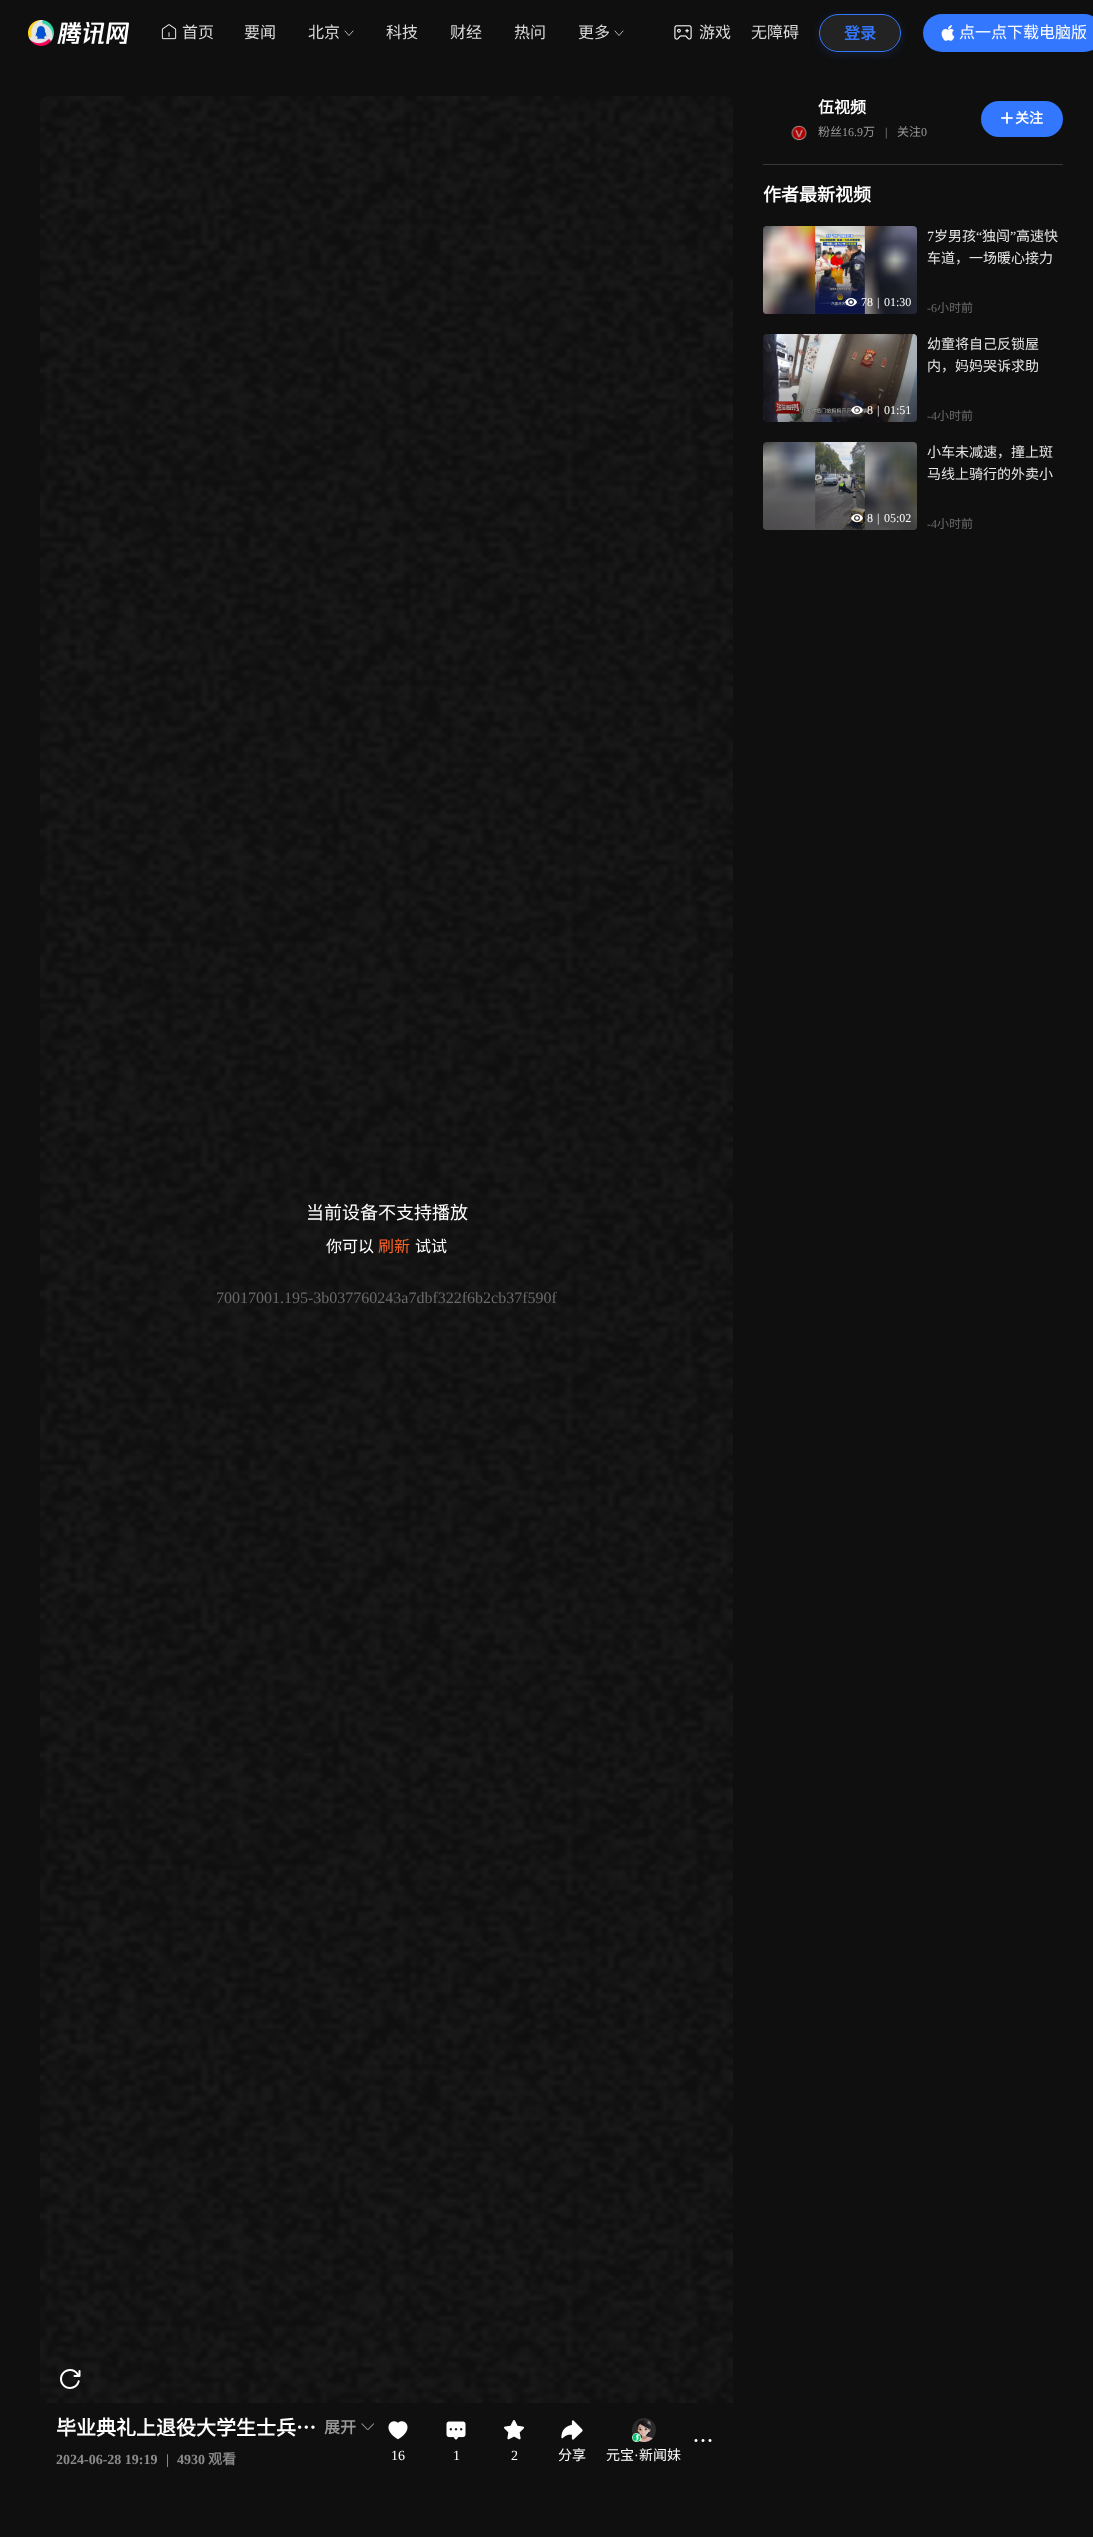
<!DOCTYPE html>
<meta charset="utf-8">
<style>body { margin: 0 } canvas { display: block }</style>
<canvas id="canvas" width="1093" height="2537"></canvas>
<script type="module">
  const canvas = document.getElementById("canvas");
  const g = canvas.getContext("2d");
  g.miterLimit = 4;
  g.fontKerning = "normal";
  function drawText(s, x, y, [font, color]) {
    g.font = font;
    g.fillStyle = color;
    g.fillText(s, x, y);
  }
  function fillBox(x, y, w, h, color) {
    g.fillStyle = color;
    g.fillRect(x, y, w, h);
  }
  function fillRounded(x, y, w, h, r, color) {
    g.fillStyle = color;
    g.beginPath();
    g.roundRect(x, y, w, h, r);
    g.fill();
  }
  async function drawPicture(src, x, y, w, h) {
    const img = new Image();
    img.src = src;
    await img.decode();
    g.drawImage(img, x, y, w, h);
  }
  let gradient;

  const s1 = ["16px Noto Sans CJK SC", "#D9D9D9"];
  const s2 = ["bold 16px Noto Sans CJK SC", "#3377FF"];
  const s3 = ["16px Noto Sans CJK SC", "#FFFFFF"];
  const s4 = ["bold 16px Noto Sans CJK SC", "#FFFFFF"];
  const s5 = ["12px Noto Sans CJK SC", "#999999"];
  const s6 = ["12px Liberation Serif", "#999999"];
  const s7 = ["bold 14px Noto Sans CJK SC", "#FFFFFF"];
  const s8 = ["bold 18px Noto Sans CJK SC", "#FFFFFF"];
  const s9 = ["12px Liberation Serif", "#FFFFFF"];
  const s10 = ["14px Liberation Serif", "#E6E6E6"];
  const s11 = ["14px Noto Sans CJK SC", "#E6E6E6"];
  const s12 = ["12px Liberation Serif", "#696969"];
  const s13 = ["12px Noto Sans CJK SC", "#696969"];
  const s14 = ["18px Noto Sans CJK SC", "#FFFFFF"];
  const s15 = ["16px Noto Sans CJK SC", "#FC6526"];
  const s16 = ["16px Liberation Serif", "#696969"];
  const s17 = ["bold 20px Noto Sans CJK SC", "#FFFFFF"];
  const s18 = ["bold 16px Noto Sans CJK SC", "#999999"];
  const s19 = ["bold 14px Liberation Serif", "#8B8B8B"];
  const s20 = ["bold 14px Noto Sans CJK SC", "#8B8B8B"];
  const s21 = ["14px Liberation Serif", "#FFFFFF"];
  const s22 = ["14px Noto Sans CJK SC", "#FFFFFF"];

  fillBox(0, 0, 1093, 2537, "#0F0F0F");
  await drawPicture("pic1.png", 28, 20, 101, 26);
  await drawPicture("pic2.png", 161, 24, 16, 16);
  drawText("首页", 182, 38, s1);
  drawText("要闻", 244, 38, s1);
  drawText("北京", 308, 38, s1);
  g.beginPath();
  g.moveTo(353, 31);
  g.lineTo(349, 35.5);
  g.lineTo(345, 31);
  g.strokeStyle = "#FFFFFF";
  g.lineWidth = 0.7;
  g.lineCap = "round";
  g.lineJoin = "round";
  g.stroke();
  drawText("科技", 386, 38, s1);
  drawText("财经", 450, 38, s1);
  drawText("热问", 514, 38, s1);
  drawText("更多", 578, 38, s1);
  g.beginPath();
  g.moveTo(623, 31);
  g.lineTo(619, 35.5);
  g.lineTo(615, 31);
  g.stroke();
  await drawPicture("pic3.png", 674, 25, 18, 15);
  drawText("游戏", 699, 38, s1);
  drawText("无障碍", 751, 38, s1);
  g.save();
  g.beginPath();
  g.moveTo(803, 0);
  g.lineTo(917, 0);
  g.lineTo(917, 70);
  g.lineTo(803, 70);
  g.closePath();
  g.moveTo(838, 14);
  g.lineTo(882, 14);
  g.bezierCurveTo(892.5, 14, 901, 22.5, 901, 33);
  g.bezierCurveTo(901, 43.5, 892.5, 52, 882, 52);
  g.lineTo(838, 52);
  g.bezierCurveTo(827.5, 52, 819, 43.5, 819, 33);
  g.bezierCurveTo(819, 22.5, 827.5, 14, 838, 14);
  g.closePath();
  g.clip("evenodd");
  g.fillStyle = "rgba(51, 119, 255, 0.16)";
  g.filter = "blur(5px)";
  g.beginPath();
  g.roundRect(819, 16, 82, 38, 19);
  g.fill();
  g.filter = "none";
  g.restore();
  g.fillStyle = "rgba(217, 217, 217, 0.1)";
  g.beginPath();
  g.roundRect(819.5, 14.5, 81, 37, 18.5);
  g.fill();
  g.strokeStyle = "#3377FF";
  g.lineWidth = 1;
  g.lineJoin = "miter";
  g.stroke();
  drawText("登录", 844, 39, s2);
  fillRounded(923, 14, 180, 38, 19, "#3377FF");
  await drawPicture("pic4.png", 941, 25, 14, 16);
  drawText("点一点下载电脑版", 959, 38, s3);
  drawText("伍视频", 818, 113, s4);
  drawText("粉丝", 818, 136, s5);
  drawText("16.9", 842, 136, s6);
  drawText("万", 863, 136, s5);
  drawText("|", 885, 136, s6);
  drawText("关注", 897, 136, s5);
  drawText("0", 921, 136, s6);
  fillRounded(981, 101, 82, 36, 18, "#3377FF");
  await drawPicture("pic5.png", 1001, 112, 12, 12);
  drawText("关注", 1015, 123, s7);
  await drawPicture("pic6.png", 791, 125, 16, 16);
  fillBox(763, 164, 300, 1, "#383838");
  drawText("作者最新视频", 763, 201, s8);
  await drawPicture("pic7.png", 763, 226, 154, 88);
  gradient = g.createLinearGradient(840, 314, 840, 226);
  gradient.addColorStop(0.3, "rgba(0, 0, 0, 0.3)");
  gradient.addColorStop(0.6, "rgba(0, 0, 0, 0)");
  g.fillStyle = gradient;
  g.beginPath();
  g.roundRect(763, 226, 154, 88, 4);
  g.fill();
  await drawPicture("pic8.png", 845, 298, 12, 9);
  drawText("78", 861, 306, s9);
  drawText("|", 877, 306, s9);
  drawText("01:30", 884, 306, s9);
  drawText("7", 927, 241, s10);
  drawText("岁男孩", 934, 241, s11);
  drawText("“", 976, 241, s10);
  drawText("独闯", 982, 241, s11);
  drawText("”", 1010, 241, s10);
  drawText("高速快", 1016, 241, s11);
  drawText("车道，一场暖心接力", 927, 263, s11);
  drawText("-6", 927, 312, s12);
  drawText("小时前", 937, 312, s13);
  await drawPicture("pic9.png", 763, 334, 154, 88);
  gradient = g.createLinearGradient(840, 422, 840, 334);
  gradient.addColorStop(0.3, "rgba(0, 0, 0, 0.3)");
  gradient.addColorStop(0.6, "rgba(0, 0, 0, 0)");
  g.fillStyle = gradient;
  g.beginPath();
  g.roundRect(763, 334, 154, 88, 4);
  g.fill();
  await drawPicture("pic10.png", 851, 406, 12, 9);
  drawText("8", 867, 414, s9);
  drawText("|", 877, 414, s9);
  drawText("01:51", 884, 414, s9);
  drawText("幼童将自己反锁屋", 927, 349, s11);
  drawText("内，妈妈哭诉求助", 927, 371, s11);
  drawText("-4", 927, 420, s12);
  drawText("小时前", 937, 420, s13);
  await drawPicture("pic11.png", 763, 442, 154, 88);
  gradient = g.createLinearGradient(840, 530, 840, 442);
  gradient.addColorStop(0.3, "rgba(0, 0, 0, 0.3)");
  gradient.addColorStop(0.6, "rgba(0, 0, 0, 0)");
  g.fillStyle = gradient;
  g.beginPath();
  g.roundRect(763, 442, 154, 88, 4);
  g.fill();
  await drawPicture("pic12.png", 851, 514, 12, 9);
  drawText("8", 867, 522, s9);
  drawText("|", 877, 522, s9);
  drawText("05:02", 884, 522, s9);
  drawText("小车未减速，撞上斑", 927, 457, s11);
  drawText("马线上骑行的外卖小", 927, 479, s11);
  drawText("-4", 927, 528, s12);
  drawText("小时前", 937, 528, s13);
  await drawPicture("pic13.png", 40, 96, 693, 2307);
  drawText("当前设备不支持播放", 306, 1219, s14);
  drawText("你可以", 326, 1252, s3);
  drawText("刷新", 378, 1252, s15);
  drawText("试试", 415, 1252, s3);
  drawText("70017001.195-3b037760243a7dbf322f6b2cb37f590f", 216, 1303, s16);
  drawText("毕业典礼上退役大学生士兵…", 56, 2435, s17);
  drawText("展开", 324, 2433, s18);
  await drawPicture("pic14.png", 361, 2423, 13, 7);
  drawText("2024-06-28 19:19", 56, 2464, s19);
  drawText("|", 166, 2464, s19);
  drawText("4930", 177, 2464, s19);
  drawText("观看", 208, 2464, s20);
  await drawPicture("pic15.png", 694, 2439, 18, 3);
  await drawPicture("pic16.png", 388, 2421, 20, 19);
  drawText("16", 391, 2460, s21);
  await drawPicture("pic17.png", 446, 2421, 20, 19);
  drawText("1", 453, 2460, s21);
  await drawPicture("pic18.png", 504, 2420, 20, 20);
  drawText("2", 511, 2460, s21);
  await drawPicture("pic19.png", 561, 2420, 22, 20);
  drawText("分享", 558, 2460, s22);
  await drawPicture("pic20.png", 632, 2418, 24, 24);
  await drawPicture("pic21.png", 632, 2433, 9, 9);
  drawText("元宝", 606, 2460, s22);
  drawText("·", 634, 2460, s21);
  drawText("新闻妹", 639, 2460, s22);
</script>
